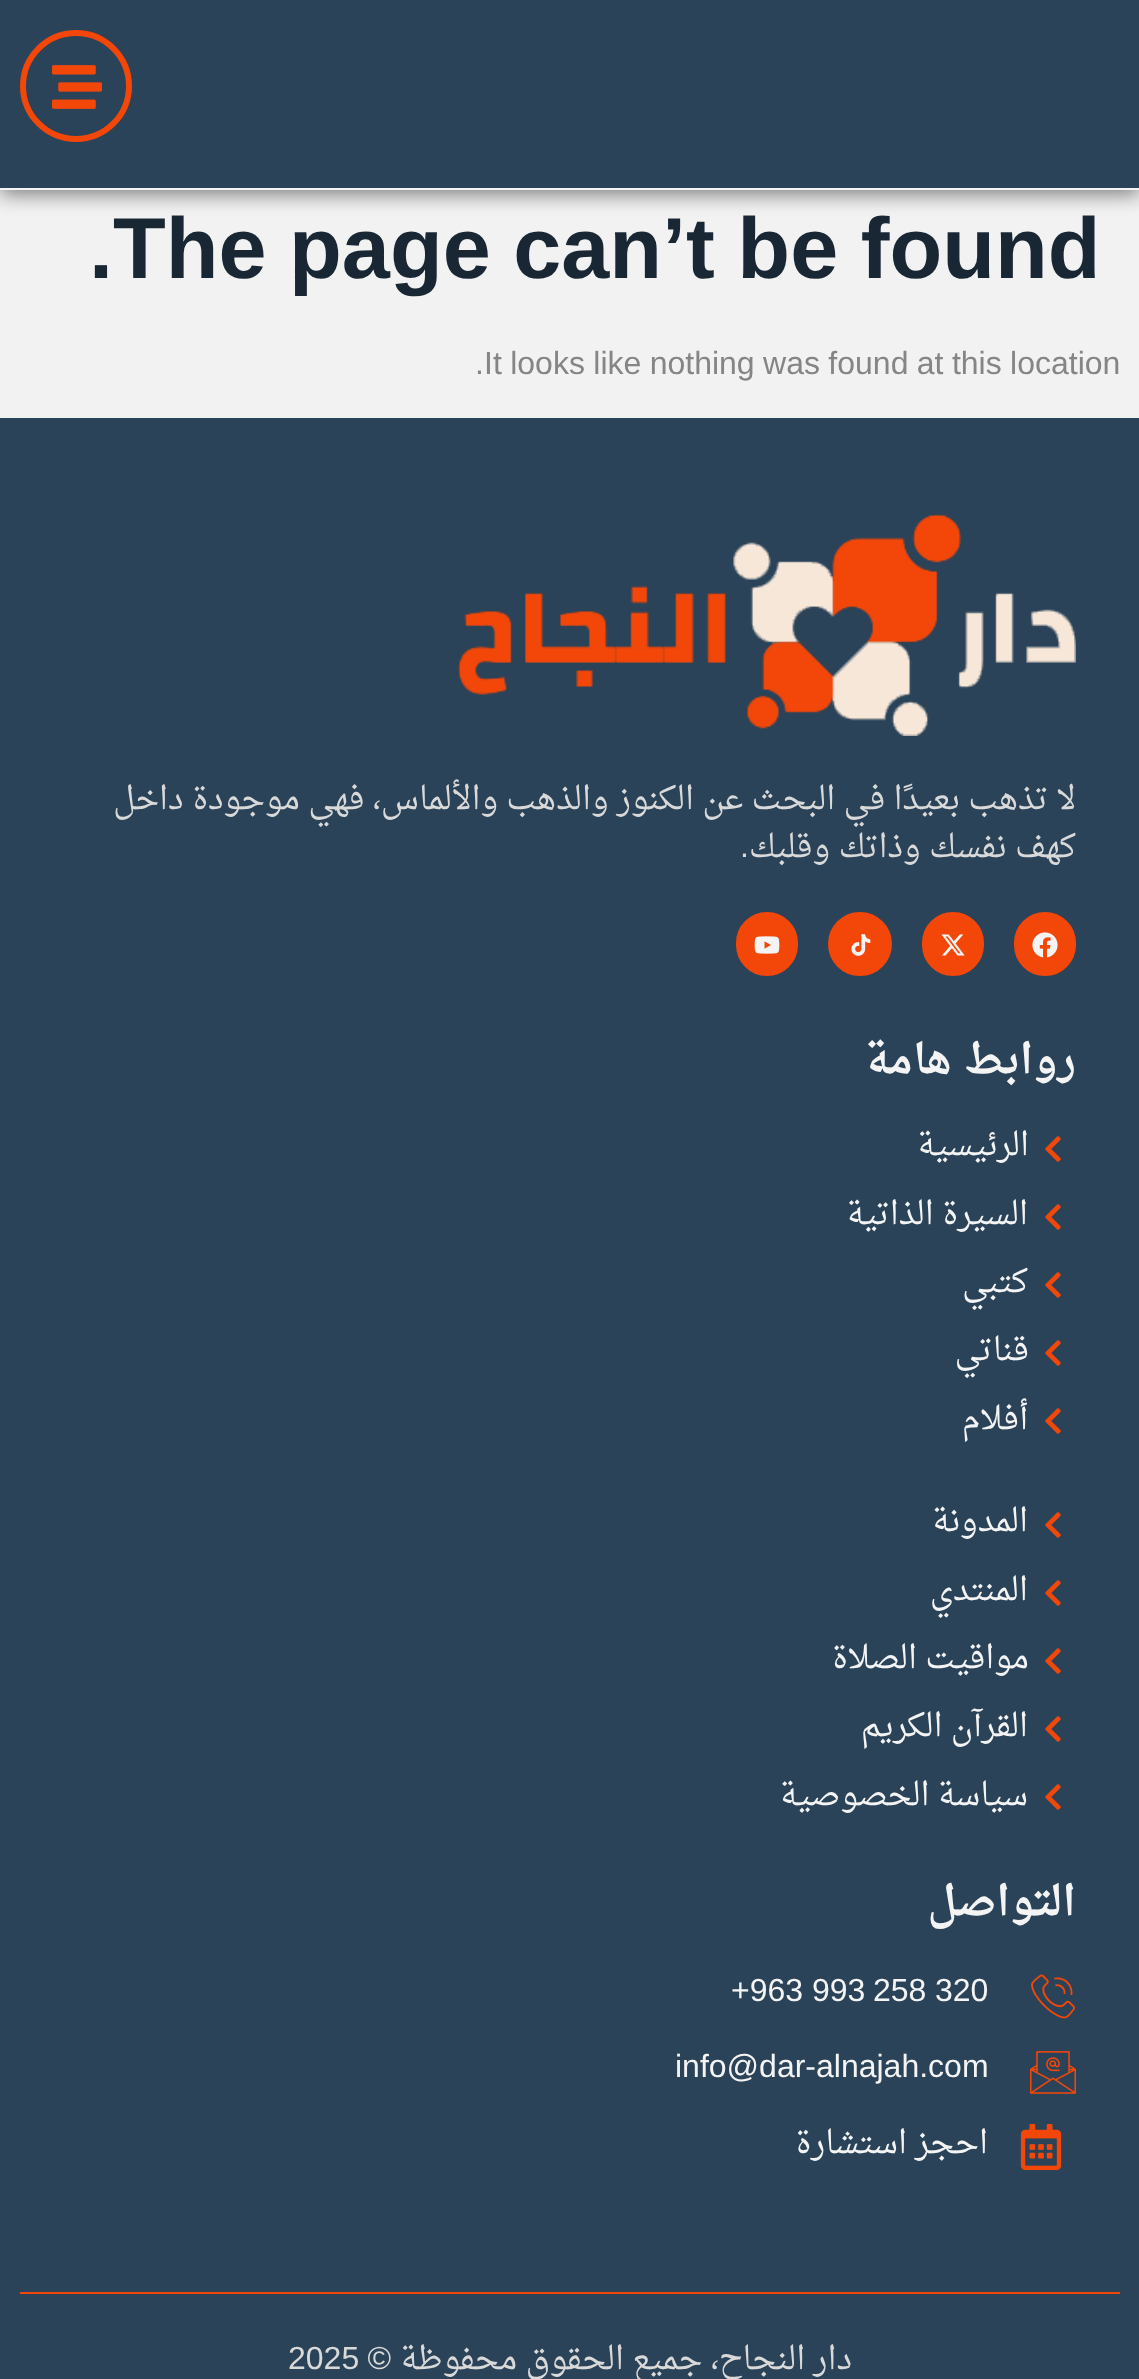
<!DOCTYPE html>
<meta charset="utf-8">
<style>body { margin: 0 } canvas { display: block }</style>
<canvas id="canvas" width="1139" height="2379"></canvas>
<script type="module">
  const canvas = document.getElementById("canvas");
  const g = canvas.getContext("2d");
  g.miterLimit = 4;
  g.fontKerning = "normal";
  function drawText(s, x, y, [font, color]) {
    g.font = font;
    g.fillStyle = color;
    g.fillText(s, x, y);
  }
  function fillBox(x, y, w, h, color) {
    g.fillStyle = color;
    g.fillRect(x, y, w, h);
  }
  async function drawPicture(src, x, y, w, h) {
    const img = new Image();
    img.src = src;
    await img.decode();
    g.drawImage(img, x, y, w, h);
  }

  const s1 = ["bold 86.4px Liberation Sans", "#192735"];
  const s2 = ["32px Liberation Sans", "#858585"];
  const s3 = ["32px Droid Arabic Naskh", "#D9D9D9"];
  const s4 = ["32px Liberation Sans", "#D9D9D9"];
  const s5 = ["bold 41.5px Droid Arabic Naskh", "#F4F4F4"];
  const s6 = ["32px Droid Arabic Naskh", "#F4F4F4"];
  const s7 = ["32px Liberation Sans", "#F4F4F4"];

  fillBox(0, 0, 1139, 2379, "#F2F2F2");
  g.fillStyle = "rgba(0, 0, 0, 0.5)";
  g.filter = "blur(10px)";
  g.beginPath();
  g.rect(0, 4, 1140, 190);
  g.fill();
  g.filter = "none";
  fillBox(0, 0, 1139, 188, "#2A4359");
  fillBox(0, 188, 1139, 2, "#F4F4F4");
  g.beginPath();
  g.arc(76, 86, 53, 0, Math.PI * 2);
  g.strokeStyle = "#F34709";
  g.lineWidth = 6;
  g.stroke();
  await drawPicture("pic1.png", 52, 65, 50, 44);
  g.wordSpacing = "-1.5px";
  drawText("The page can’t be found", 113, 278, s1);
  g.wordSpacing = "0px";
  drawText(".", 89, 278, s1);
  g.wordSpacing = "-0.5px";
  drawText("It looks like nothing was found at this location", 484, 374, s2);
  g.wordSpacing = "0px";
  drawText(".", 475, 374, s2);
  fillBox(0, 418, 1139, 1961, "#2A4359");
  await drawPicture("pic2.png", 458, 514, 618, 222);
  g.direction = "rtl";
  drawText("لا تذهب بعيدًا في البحث عن الكنوز والذهب والألماس، فهي موجودة داخل", 1076, 809, s3);
  drawText("كهف نفسك وذاتك وقلبك", 1076, 857, s3);
  drawText(".", 749, 857, s4);
  g.fillStyle = "#F34709";
  g.beginPath();
  g.roundRect(1015, 913, 60, 62, 30);
  g.fill();
  g.lineWidth = 2;
  g.stroke();
  await drawPicture("pic3.png", 1032, 932, 26, 26);
  g.beginPath();
  g.roundRect(923, 913, 60, 62, 30);
  g.fill();
  g.stroke();
  await drawPicture("pic4.png", 941, 934, 24, 22);
  g.beginPath();
  g.arc(860, 944, 31, 0, Math.PI * 2);
  g.fill();
  g.stroke();
  await drawPicture("pic5.png", 851, 934, 20, 22);
  g.beginPath();
  g.roundRect(737, 913, 60, 62, 30);
  g.fill();
  g.stroke();
  await drawPicture("pic6.png", 754, 936, 26, 18);
  drawText("روابط هامة", 1076, 1073, s5);
  await drawPicture("pic7.png", 1045, 1136, 16, 26);
  drawText("الرئيسية", 1029, 1155, s6);
  await drawPicture("pic7.png", 1045, 1204, 16, 26);
  drawText("السيرة الذاتية", 1028, 1224, s6);
  await drawPicture("pic7.png", 1045, 1272, 16, 26);
  drawText("كتبي", 1028, 1292, s6);
  await drawPicture("pic7.png", 1045, 1340, 16, 26);
  drawText("قناتي", 1029, 1360, s6);
  await drawPicture("pic7.png", 1045, 1408, 16, 26);
  drawText("أفلام", 1028, 1429, s6);
  await drawPicture("pic7.png", 1045, 1512, 16, 26);
  drawText("المدونة", 1028, 1531, s6);
  await drawPicture("pic7.png", 1045, 1580, 16, 26);
  drawText("المنتدي", 1028, 1600, s6);
  await drawPicture("pic7.png", 1045, 1648, 16, 26);
  drawText("مواقيت الصلاة", 1029, 1668, s6);
  await drawPicture("pic7.png", 1045, 1716, 16, 26);
  drawText("القرآن الكريم", 1028, 1736, s6);
  await drawPicture("pic7.png", 1045, 1784, 16, 26);
  drawText("سياسة الخصوصية", 1028, 1805, s6);
  drawText("التواصل", 1076, 1915, s5);
  await drawPicture("pic8.png", 1031, 1974, 44, 45);
  g.direction = "ltr";
  drawText("320", 935, 2001, s7);
  drawText("258", 873, 2001, s7);
  drawText("993", 812, 2001, s7);
  drawText("+963", 731, 2001, s7);
  await drawPicture("pic9.png", 1030, 2051, 46, 43);
  drawText("info@dar-alnajah.com", 675, 2077, s7);
  await drawPicture("pic10.png", 1020, 2124, 42, 46);
  g.direction = "rtl";
  drawText("احجز استشارة", 988, 2153, s6);
  fillBox(20, 2292, 1100, 2, "#F34709");
  drawText("دار النجاح، جميع الحقوق محفوظة", 852, 2369, s3);
  drawText("©", 391, 2369, s4);
  g.direction = "ltr";
  drawText("2025", 288, 2369, s4);
</script>
